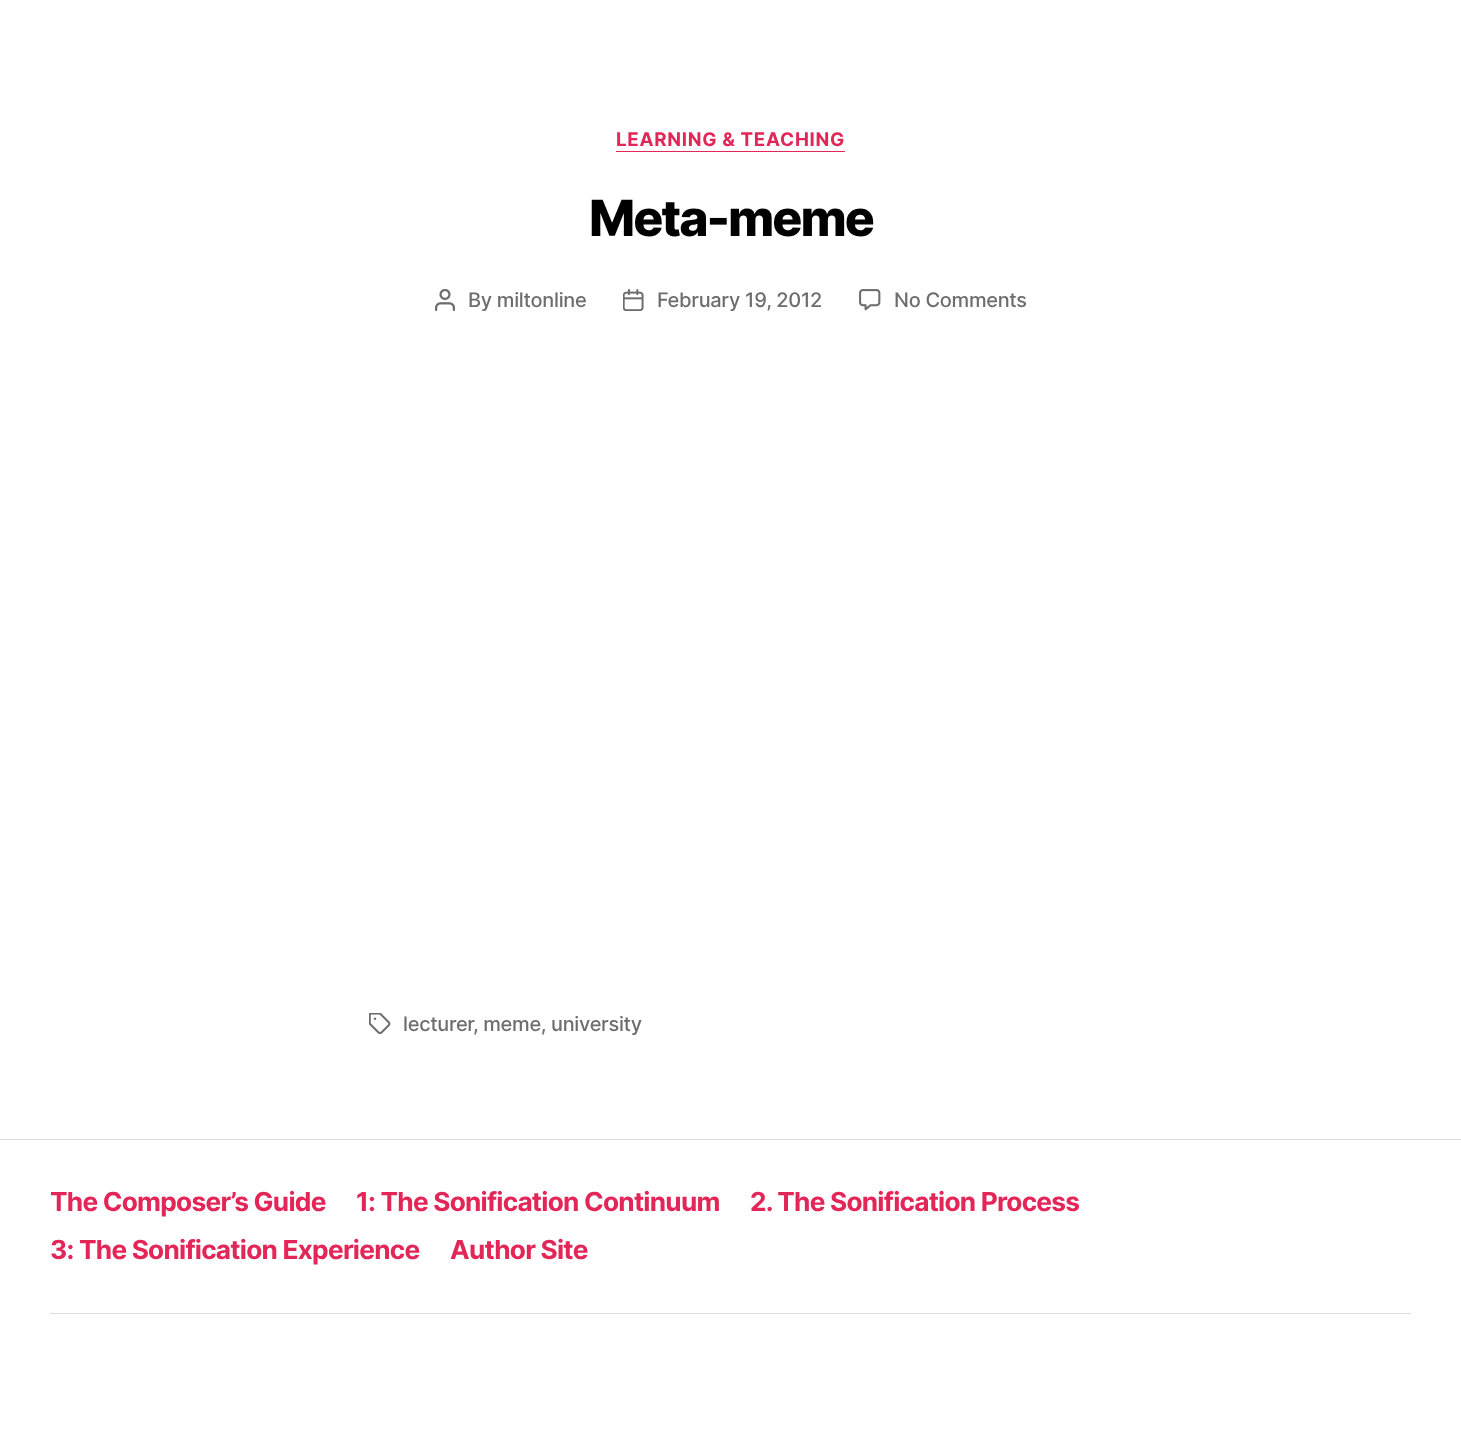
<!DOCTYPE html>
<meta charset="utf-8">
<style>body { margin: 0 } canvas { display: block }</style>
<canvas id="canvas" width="1461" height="1440"></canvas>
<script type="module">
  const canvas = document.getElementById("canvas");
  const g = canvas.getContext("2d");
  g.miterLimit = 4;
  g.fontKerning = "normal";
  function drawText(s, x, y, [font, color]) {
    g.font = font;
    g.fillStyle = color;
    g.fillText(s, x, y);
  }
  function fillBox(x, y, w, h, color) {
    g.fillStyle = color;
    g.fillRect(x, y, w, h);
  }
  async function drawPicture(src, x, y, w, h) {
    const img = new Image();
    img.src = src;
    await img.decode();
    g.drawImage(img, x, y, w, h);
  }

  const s1 = ["bold 18.75px Inter", "#E22658"];
  const s2 = ["800 50px Inter", "#000000"];
  const s3 = ["500 20px Inter", "#6D6D6D"];
  const s4 = ["bold 26.25px Inter", "#E22658"];

  fillBox(0, 0, 1461, 1440, "#FFFFFF");
  fillBox(616, 151, 229, 1, "#E22658");
  g.letterSpacing = "0.7px";
  drawText("LEARNING & TEACHING", 616, 146, s1);
  g.letterSpacing = "-2px";
  drawText("Meta-meme", 589, 236, s2);
  await drawPicture("pic1.png", 435, 289, 20, 22);
  g.letterSpacing = "-0.3px";
  drawText("By miltonline", 468, 307, s3);
  await drawPicture("pic2.png", 623, 289, 21, 22);
  drawText("February 19, 2012", 657, 307, s3);
  await drawPicture("pic3.png", 859, 289, 22, 22);
  drawText("No Comments", 894, 307, s3);
  await drawPicture("pic4.png", 369, 1013, 22, 22);
  drawText("lecturer", 403, 1031, s3);
  drawText(", meme, university", 473, 1031, s3);
  fillBox(0, 1139, 1461, 1, "#DBDBDB");
  fillBox(50, 1313, 1361, 1, "#DBDBDB");
  g.letterSpacing = "-0.75px";
  drawText("The Composer’s Guide", 50, 1211, s4);
  drawText("1: The Sonification Continuum", 356, 1211, s4);
  drawText("2. The Sonification Process", 750, 1211, s4);
  drawText("3: The Sonification Experience", 50, 1259, s4);
  drawText("Author Site", 450, 1259, s4);
</script>
